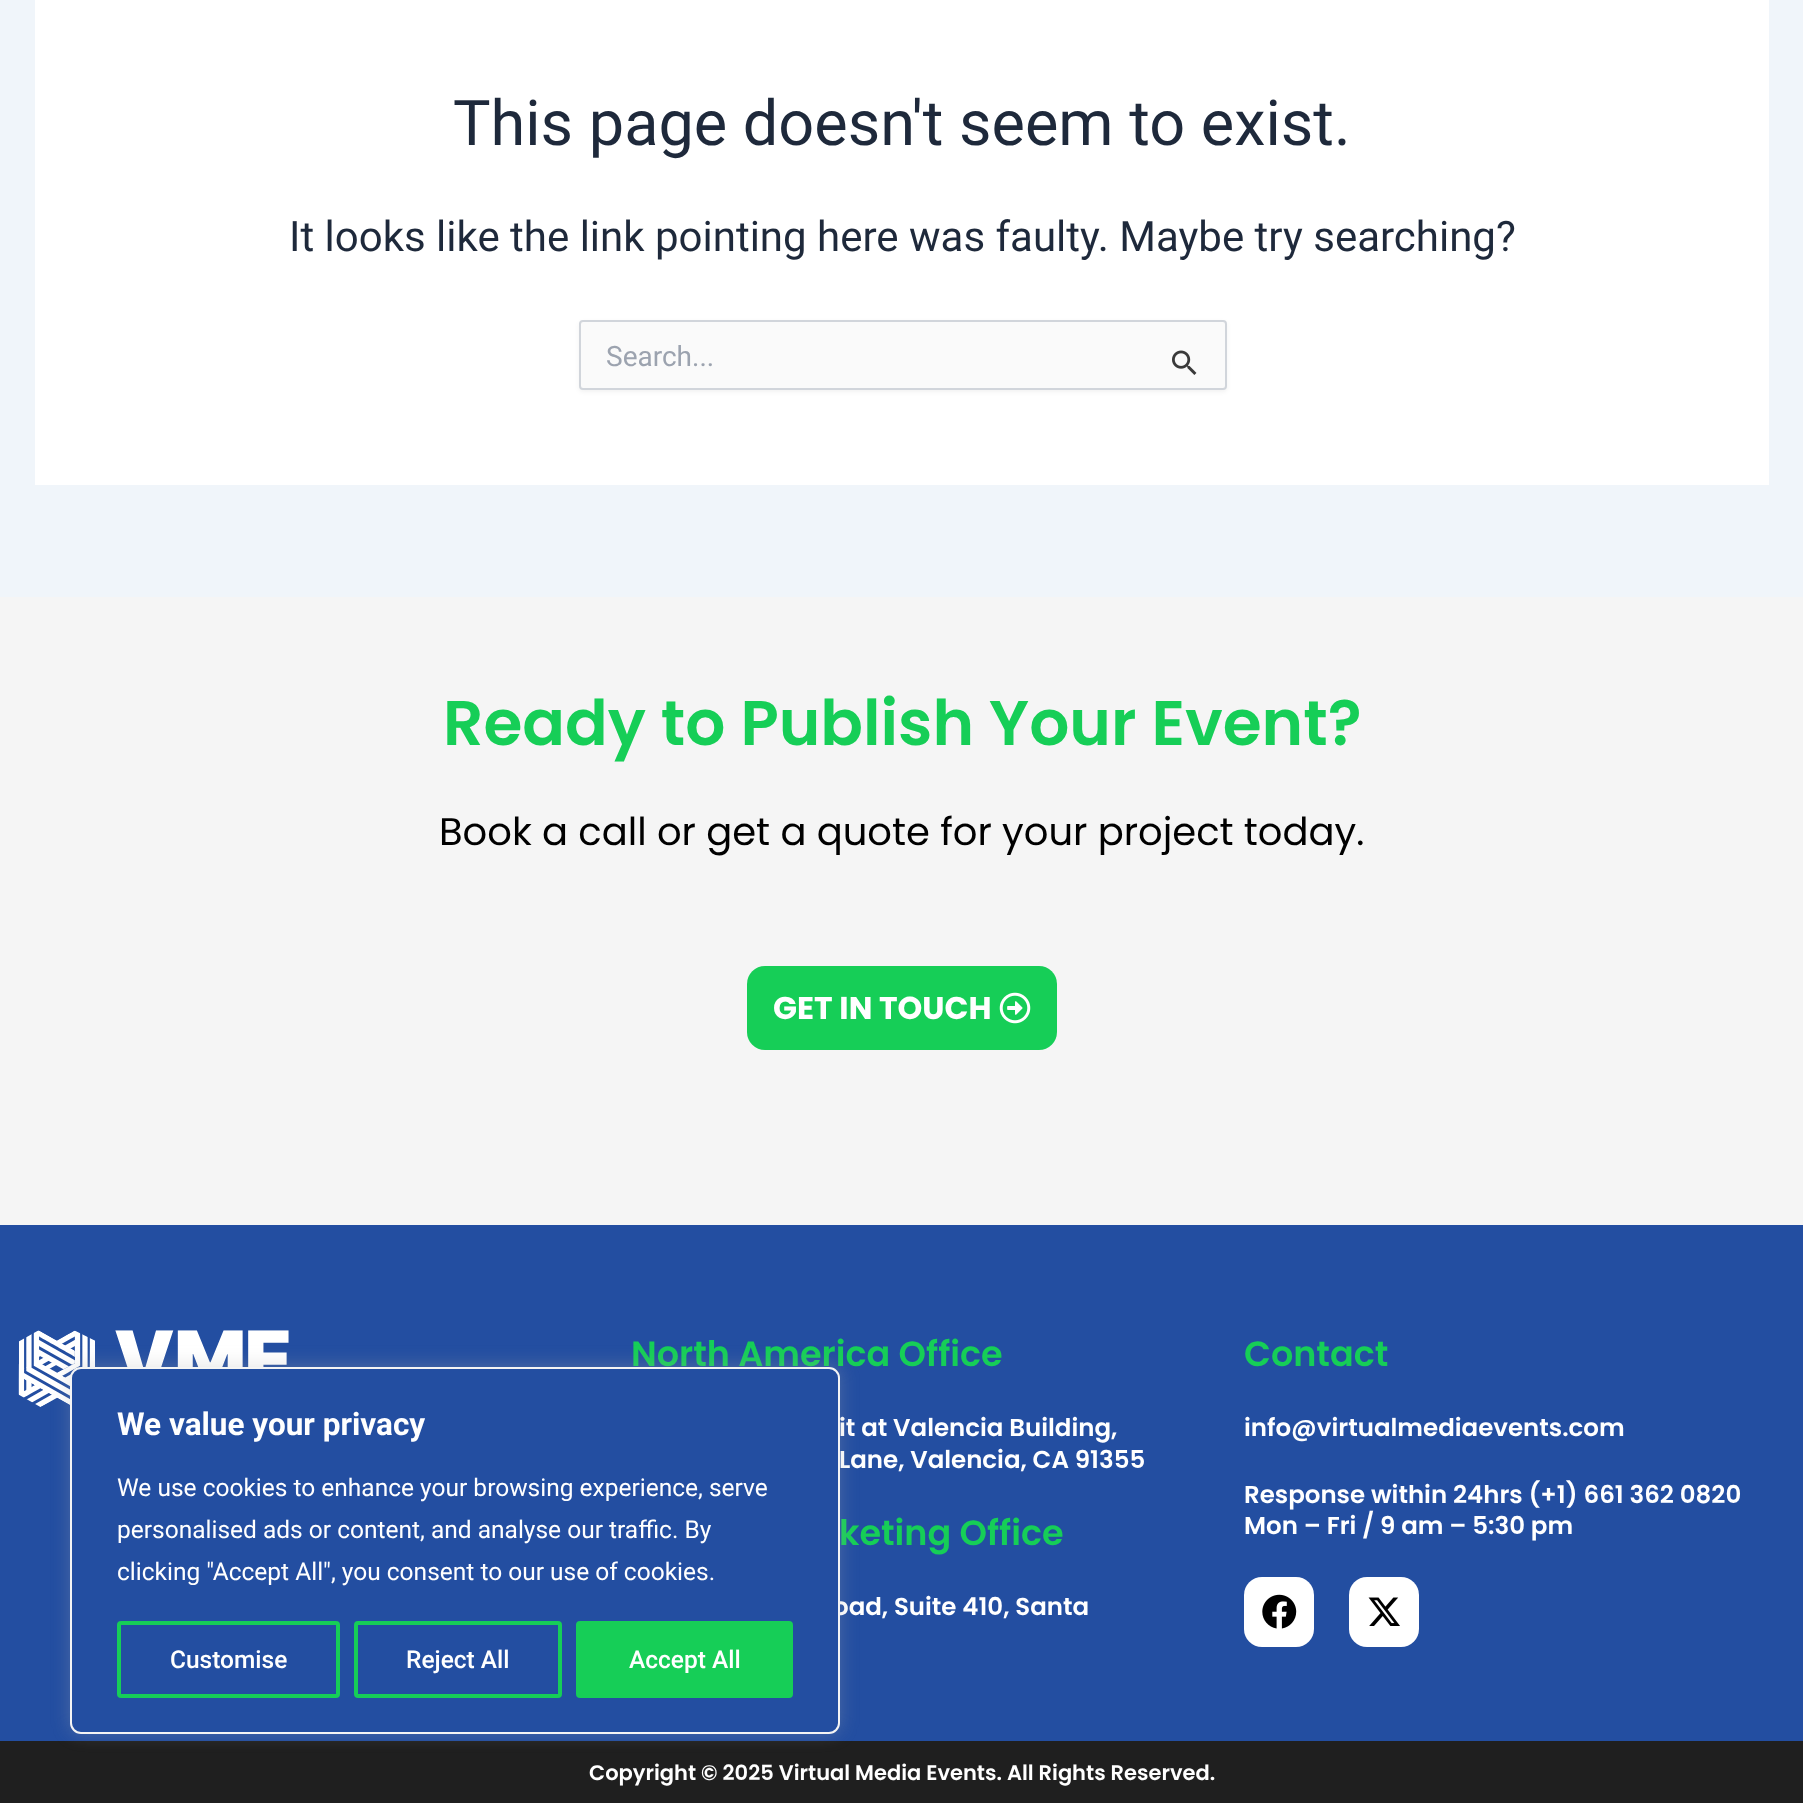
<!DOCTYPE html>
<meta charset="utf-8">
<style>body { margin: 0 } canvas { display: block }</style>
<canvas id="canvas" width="1803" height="1803"></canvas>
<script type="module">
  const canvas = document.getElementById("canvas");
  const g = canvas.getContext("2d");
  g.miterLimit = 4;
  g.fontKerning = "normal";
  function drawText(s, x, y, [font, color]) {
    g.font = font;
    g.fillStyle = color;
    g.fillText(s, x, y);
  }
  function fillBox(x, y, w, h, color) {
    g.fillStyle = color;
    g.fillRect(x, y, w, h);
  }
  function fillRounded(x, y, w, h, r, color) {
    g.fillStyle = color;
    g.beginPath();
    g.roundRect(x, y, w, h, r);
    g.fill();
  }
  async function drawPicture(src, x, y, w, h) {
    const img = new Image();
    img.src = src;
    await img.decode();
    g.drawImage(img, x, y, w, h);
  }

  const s1 = ["63px Roboto", "#1E293B"];
  const s2 = ["42px Roboto", "#1E293B"];
  const s3 = ["28px Roboto", "#9CA3AF"];
  const s4 = ["600 63px Poppins", "#16CE57"];
  const s5 = ["38.5px Poppins", "#000000"];
  const s6 = ["bold 31.5px Poppins", "#FFFFFF"];
  const s7 = ["600 35px Poppins", "#16CE57"];
  const s8 = ["600 24.5px Poppins", "#FFFFFF"];
  const s9 = ["600 21px Poppins", "#FFFFFF"];
  const s10 = ["bold 31.5px Roboto", "#FFFFFF"];
  const s11 = ["24.5px Roboto", "#FFFFFF"];
  const s12 = ["500 24.5px Roboto", "#FFFFFF"];

  fillBox(0, 0, 1803, 1803, "#F0F5FA");
  fillBox(35, 0, 1734, 485, "#FFFFFF");
  drawText("This page doesn't seem to exist.", 453, 145, s1);
  drawText("It looks like the link pointing here was faulty. Maybe try searching?", 289, 251, s2);
  g.fillStyle = "rgba(0, 0, 0, 0.05)";
  g.filter = "blur(2px)";
  g.beginPath();
  g.roundRect(579, 322, 648, 70, 4);
  g.fill();
  g.filter = "none";
  g.fillStyle = "#FAFAFA";
  g.beginPath();
  g.roundRect(580, 321, 646, 68, 3);
  g.fill();
  g.strokeStyle = "#D1D5DB";
  g.lineWidth = 2;
  g.stroke();
  drawText("Search...", 606, 366, s3);
  await drawPicture("pic1.png", 1172, 350, 25, 25);
  fillBox(0, 597, 1803, 628, "#F5F5F5");
  drawText("Ready to Publish Your Event?", 443, 745, s4);
  drawText("Book a call or get a quote for your project today.", 439, 845, s5);
  fillRounded(747, 966, 310, 84, 18, "#16CE57");
  drawText("GET IN TOUCH", 773, 1019, s6);
  await drawPicture("pic2.png", 999, 992, 32, 32);
  fillBox(0, 1225, 1803, 516, "#234EA1");
  await drawPicture("pic3.png", 18, 1330, 271, 77);
  drawText("North America Office", 631, 1366, s7);
  drawText("it at Valencia Building,", 839, 1436, s8);
  drawText("Lane, Valencia, CA 91355", 839, 1468, s8);
  drawText("keting Office", 839, 1545, s7);
  drawText("oad, Suite 410, Santa", 833, 1615, s8);
  drawText("Contact", 1244, 1366, s7);
  drawText("info@virtualmediaevents.com", 1244, 1436, s8);
  drawText("Response within 24hrs (+1) 661 362 0820", 1244, 1503, s8);
  drawText("Mon – Fri / 9 am – 5:30 pm", 1244, 1534, s8);
  fillRounded(1244, 1577, 70, 70, 18, "#FFFFFF");
  await drawPicture("pic4.png", 1262, 1594, 35, 35);
  fillRounded(1349, 1577, 70, 70, 18, "#FFFFFF");
  await drawPicture("pic5.png", 1368, 1597, 32, 29);
  fillBox(0, 1741, 1803, 62, "#1F1F1F");
  drawText("Copyright © 2025 Virtual Media Events. All Rights Reserved.", 589, 1780, s9);
  g.fillStyle = "rgba(172, 171, 171, 0.3)";
  g.filter = "blur(9px)";
  g.beginPath();
  g.roundRect(70, 1365, 770, 368, 11);
  g.fill();
  g.filter = "none";
  g.fillStyle = "#234EA1";
  g.beginPath();
  g.roundRect(71, 1368, 768, 365, 10);
  g.fill();
  g.strokeStyle = "#F4F4F4";
  g.stroke();
  drawText("We value your privacy", 117, 1435, s10);
  drawText("We use cookies to enhance your browsing experience, serve", 117, 1496, s11);
  drawText("personalised ads or content, and analyse our traffic. By", 117, 1538, s11);
  drawText("clicking \"Accept All\", you consent to our use of cookies.", 117, 1580, s11);
  g.beginPath();
  g.roundRect(119, 1623, 219, 73, 2);
  g.strokeStyle = "#16CE57";
  g.lineWidth = 4;
  g.stroke();
  drawText("Customise", 170, 1668, s12);
  g.beginPath();
  g.roundRect(356, 1623, 204, 73, 2);
  g.stroke();
  drawText("Reject All", 406, 1668, s12);
  g.fillStyle = "#16CE57";
  g.beginPath();
  g.roundRect(578, 1623, 213, 73, 2);
  g.fill();
  g.stroke();
  drawText("Accept All", 629, 1668, s12);
</script>
